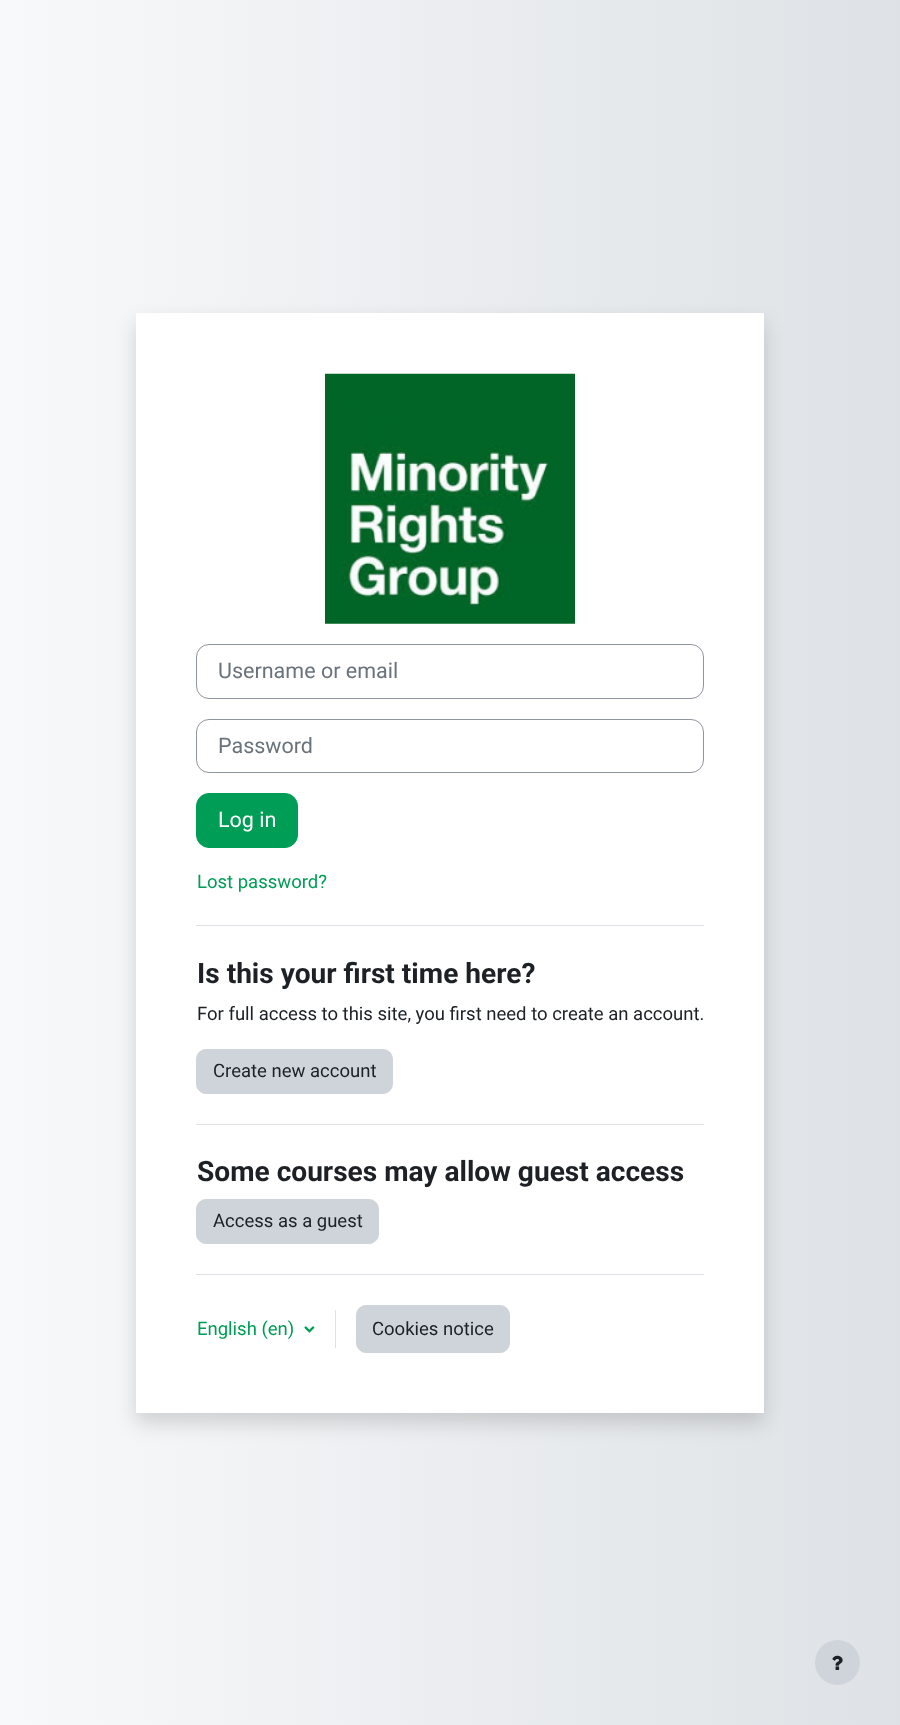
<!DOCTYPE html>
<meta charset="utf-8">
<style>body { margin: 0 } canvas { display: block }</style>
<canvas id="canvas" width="900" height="1725"></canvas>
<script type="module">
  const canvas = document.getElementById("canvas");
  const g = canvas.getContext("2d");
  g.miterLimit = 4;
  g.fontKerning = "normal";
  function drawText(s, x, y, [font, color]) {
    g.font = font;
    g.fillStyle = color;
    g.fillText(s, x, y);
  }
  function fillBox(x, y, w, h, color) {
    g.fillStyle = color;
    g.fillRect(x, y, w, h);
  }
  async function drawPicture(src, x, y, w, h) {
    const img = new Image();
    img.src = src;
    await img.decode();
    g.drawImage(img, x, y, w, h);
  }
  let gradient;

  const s1 = ["21.5px Roboto", "#6A737B"];
  const s2 = ["21.5px Roboto", "#FFFFFF"];
  const s3 = ["18.5px Roboto", "#009D56"];
  const s4 = ["bold 28.1px Roboto", "#1D2125"];
  const s5 = ["18.5px Roboto", "#1D2125"];

  fillBox(0, 0, 900, 1725, "#FFFFFF");
  gradient = g.createLinearGradient(0, 863, 900, 863);
  gradient.addColorStop(0, "#F8F9FA");
  gradient.addColorStop(1, "#DEE2E6");
  g.fillStyle = gradient;
  g.fillRect(0, 0, 900, 1725);
  g.fillStyle = "rgba(0, 0, 0, 0.15)";
  g.filter = "blur(10px)";
  g.beginPath();
  g.rect(136, 323, 628, 1100);
  g.fill();
  g.filter = "none";
  fillBox(136, 313, 628, 1100, "#FFFFFF");
  await drawPicture("pic1.png", 325, 373, 250, 251);
  g.beginPath();
  g.roundRect(196.5, 644.5, 507, 54, 12.5);
  g.strokeStyle = "#8F959E";
  g.stroke();
  drawText("Username or email", 218, 678, s1);
  g.beginPath();
  g.roundRect(196.5, 719.5, 507, 53, 12.5);
  g.stroke();
  drawText("Password", 218, 753, s1);
  g.fillStyle = "#009D56";
  g.beginPath();
  g.roundRect(196.5, 793.5, 101, 54, 12.5);
  g.fill();
  g.strokeStyle = "#009D56";
  g.stroke();
  drawText("Log in", 218, 827, s2);
  drawText("Lost password?", 197, 888, s3);
  fillBox(196, 925, 508, 1, "#DEE2E6");
  drawText("Is this your first time here?", 197, 983, s4);
  drawText("For full access to this site, you first need to create an account.", 197, 1020, s5);
  g.fillStyle = "#CED4DA";
  g.beginPath();
  g.roundRect(196.5, 1049.5, 196, 44, 9.5);
  g.fill();
  g.strokeStyle = "#CED4DA";
  g.stroke();
  drawText("Create new account", 213, 1077, s5);
  fillBox(196, 1124, 508, 1, "#DEE2E6");
  drawText("Some courses may allow guest access", 197, 1181, s4);
  g.fillStyle = "#CED4DA";
  g.beginPath();
  g.roundRect(196.5, 1199.5, 182, 44, 9.5);
  g.fill();
  g.stroke();
  drawText("Access as a guest", 213, 1227, s5);
  fillBox(196, 1274, 508, 1, "#DEE2E6");
  drawText("English (en)", 197, 1335, s3);
  await drawPicture("pic2.png", 304, 1326, 11, 7);
  fillBox(335, 1310, 1, 38, "#DEE2E6");
  g.fillStyle = "#CED4DA";
  g.beginPath();
  g.roundRect(356.5, 1305.5, 153, 47, 9.5);
  g.fill();
  g.stroke();
  drawText("Cookies notice", 372, 1335, s5);
  g.fillStyle = "#CED4DA";
  g.beginPath();
  g.arc(837.5, 1662.5, 22.5, 0, Math.PI * 2);
  g.fill();
  await drawPicture("pic3.png", 832, 1655, 11, 15);
</script>
